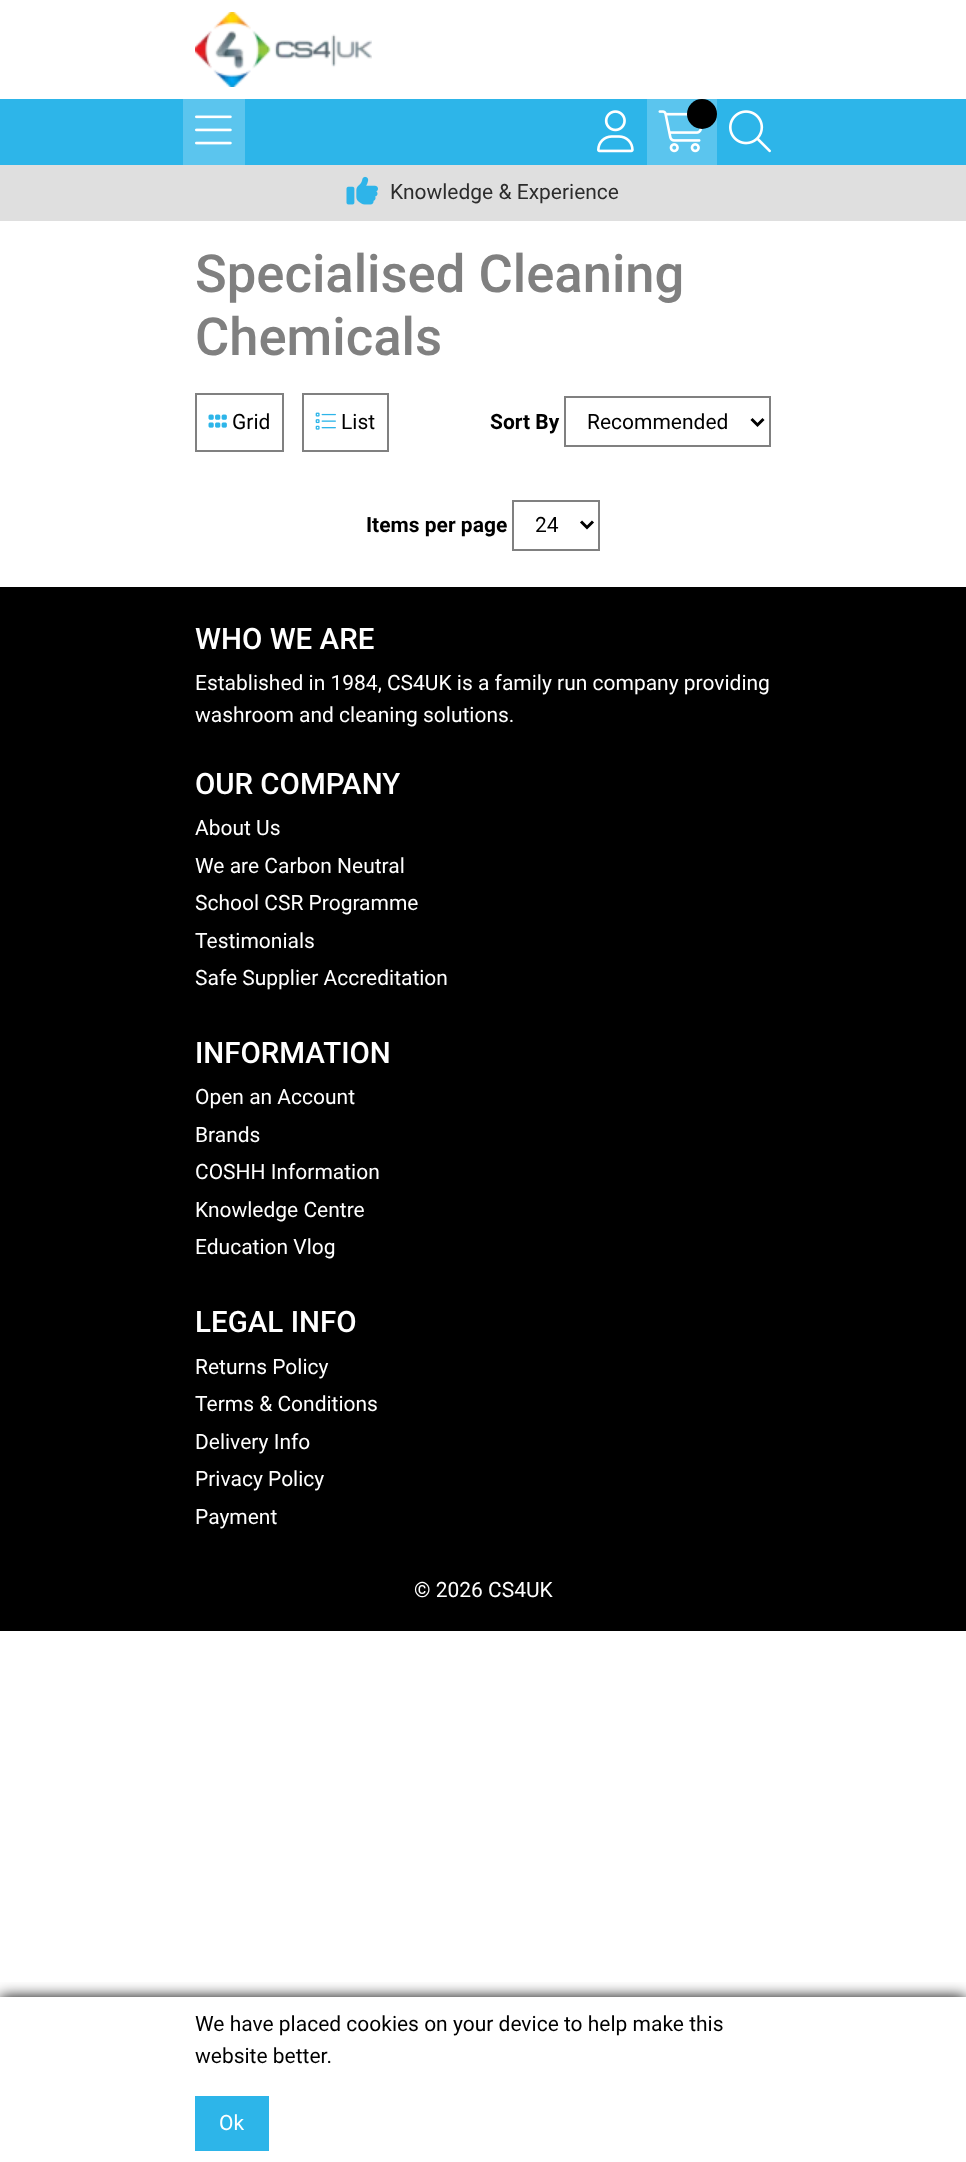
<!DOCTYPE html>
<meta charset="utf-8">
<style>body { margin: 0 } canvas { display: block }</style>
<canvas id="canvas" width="966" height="2162"></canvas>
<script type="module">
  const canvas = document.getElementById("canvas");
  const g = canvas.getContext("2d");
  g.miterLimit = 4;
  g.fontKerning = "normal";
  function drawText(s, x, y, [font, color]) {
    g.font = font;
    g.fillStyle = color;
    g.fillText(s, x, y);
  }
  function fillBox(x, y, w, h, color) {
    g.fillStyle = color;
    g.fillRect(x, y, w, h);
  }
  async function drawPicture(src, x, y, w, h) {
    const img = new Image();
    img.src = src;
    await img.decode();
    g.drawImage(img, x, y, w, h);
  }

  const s1 = ["21px Roboto", "#2C2C2C"];
  const s2 = ["500 52.5px Roboto", "#808080"];
  const s3 = ["21px Roboto", "#000000"];
  const s4 = ["bold 21px Roboto", "#000000"];
  const s5 = ["500 29.5px Roboto", "#FFFFFF"];
  const s6 = ["21px Roboto", "#FFFFFF"];

  fillBox(0, 0, 966, 2162, "#FFFFFF");
  await drawPicture("pic1.png", 195, 12, 177, 75);
  fillBox(0, 99, 966, 66, "#2DB5E9");
  fillBox(183, 99, 62, 66, "#5BC5EE");
  await drawPicture("pic2.png", 195, 115, 37, 30);
  await drawPicture("pic3.png", 597, 110, 37, 43);
  fillBox(647, 99, 70, 66, "#5BC5EE");
  await drawPicture("pic4.png", 658, 110, 45, 43);
  g.fillStyle = "#000000";
  g.beginPath();
  g.arc(702, 114, 15, 0, Math.PI * 2);
  g.fill();
  await drawPicture("pic5.png", 729, 110, 42, 43);
  fillBox(0, 165, 966, 56, "#DFDFDF");
  await drawPicture("pic6.png", 346, 176, 32, 29);
  drawText("Knowledge & Experience", 390, 199, s1);
  drawText("Specialised Cleaning", 195, 292, s2);
  drawText("Chemicals", 195, 355, s2);
  g.strokeStyle = "#808080";
  g.lineWidth = 2;
  g.strokeRect(196, 394, 87, 57);
  await drawPicture("pic7.png", 208, 414, 19, 14);
  drawText("Grid", 232, 429, s3);
  g.strokeRect(303, 394, 85, 57);
  await drawPicture("pic8.png", 315, 412, 21, 18);
  drawText("List", 341, 429, s3);
  drawText("Sort By", 490, 429, s4);
  g.strokeRect(565, 397, 205, 49);
  g.beginPath();
  g.moveTo(751.5, 419);
  g.lineTo(757.5, 425);
  g.lineTo(763.5, 419);
  g.strokeStyle = "#000000";
  g.lineWidth = 3;
  g.stroke();
  drawText("Recommended", 587, 429, s3);
  drawText("Items per page", 366, 532, s4);
  g.strokeStyle = "#808080";
  g.lineWidth = 2;
  g.strokeRect(513, 501, 86, 49);
  g.beginPath();
  g.moveTo(581, 521.5);
  g.lineTo(587, 527.5);
  g.lineTo(593, 521.5);
  g.strokeStyle = "#000000";
  g.lineWidth = 3;
  g.stroke();
  drawText("24", 535, 532, s3);
  fillBox(0, 587, 966, 1044, "#000000");
  drawText("WHO WE ARE", 195, 649, s5);
  drawText("Established in 1984, CS4UK is a family run company providing", 195, 690, s6);
  drawText("washroom and cleaning solutions.", 195, 722, s6);
  drawText("OUR COMPANY", 195, 794, s5);
  drawText("About Us", 195, 835, s6);
  drawText("We are Carbon Neutral", 195, 873, s6);
  drawText("School CSR Programme", 195, 910, s6);
  drawText("Testimonials", 195, 948, s6);
  drawText("Safe Supplier Accreditation", 195, 985, s6);
  drawText("INFORMATION", 195, 1063, s5);
  drawText("Open an Account", 195, 1104, s6);
  drawText("Brands", 195, 1142, s6);
  drawText("COSHH Information", 195, 1179, s6);
  drawText("Knowledge Centre", 195, 1217, s6);
  drawText("Education Vlog", 195, 1254, s6);
  drawText("LEGAL INFO", 195, 1332, s5);
  drawText("Returns Policy", 195, 1374, s6);
  drawText("Terms & Conditions", 195, 1411, s6);
  drawText("Delivery Info", 195, 1449, s6);
  drawText("Privacy Policy", 195, 1486, s6);
  drawText("Payment", 195, 1524, s6);
  drawText("© 2026 CS4UK", 414, 1597, s6);
  g.save();
  g.beginPath();
  g.rect(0, 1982, 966, 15);
  g.clip();
  g.fillStyle = "#000000";
  g.filter = "blur(7.5px)";
  g.beginPath();
  g.rect(0, 1997, 966, 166);
  g.fill();
  g.filter = "none";
  g.restore();
  drawText("We have placed cookies on your device to help make this", 195, 2031, s3);
  drawText("website better.", 195, 2063, s3);
  fillBox(195, 2096, 74, 55, "#2DB5E9");
  drawText("Ok", 219, 2130, s6);
</script>
